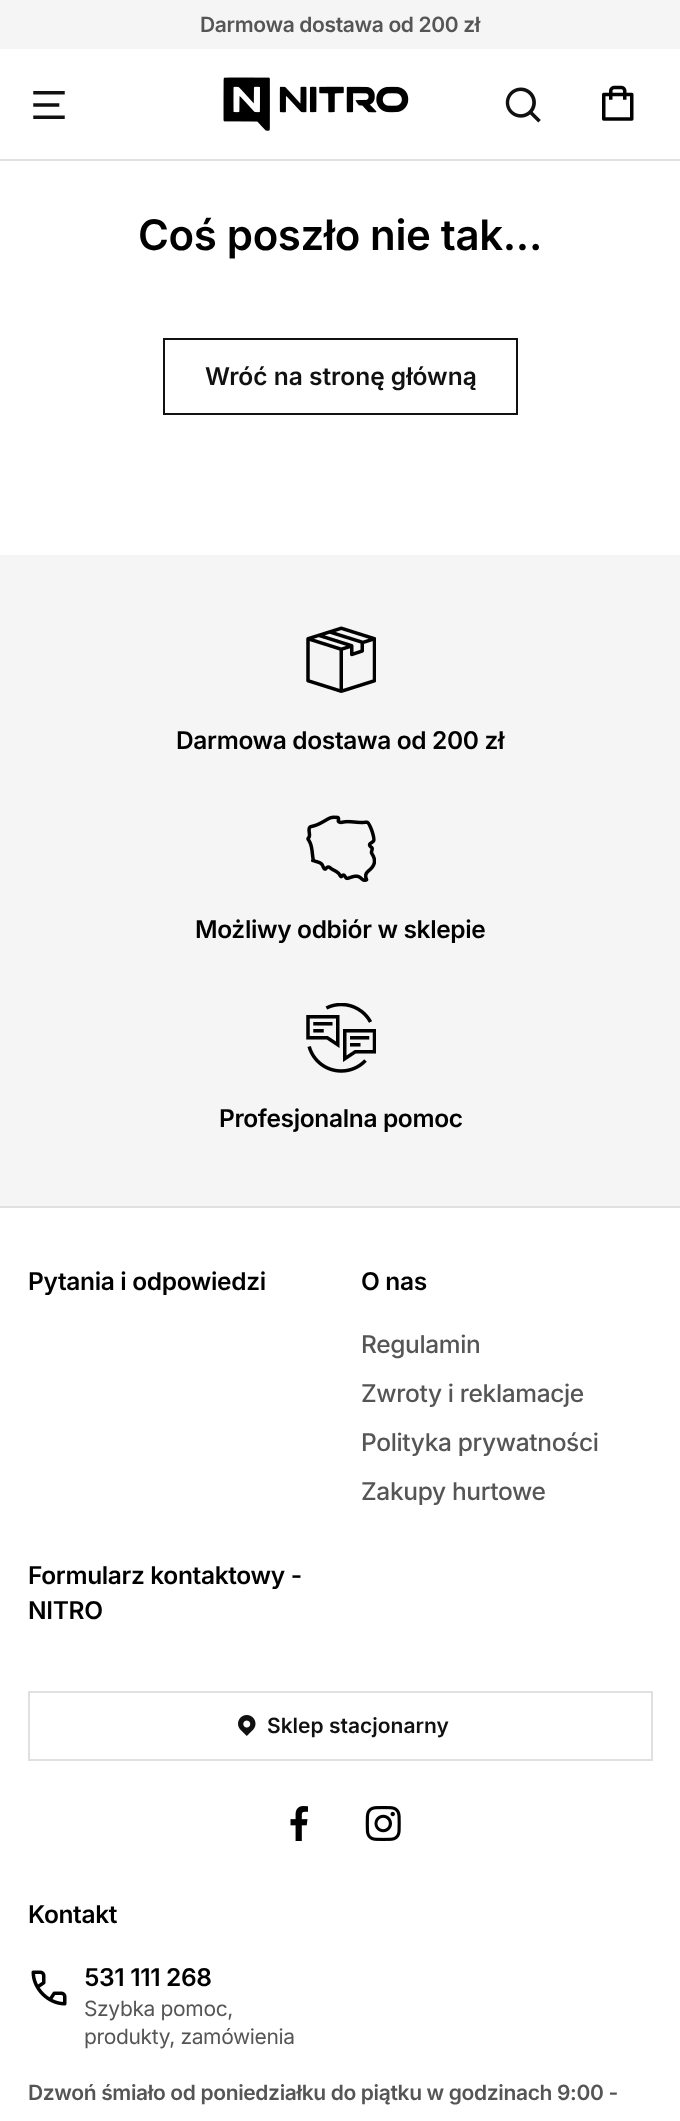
<!DOCTYPE html>
<meta charset="utf-8">
<style>body { margin: 0 } canvas { display: block }</style>
<canvas id="canvas" width="680" height="2121"></canvas>
<script type="module">
  const canvas = document.getElementById("canvas");
  const g = canvas.getContext("2d");
  g.miterLimit = 4;
  g.fontKerning = "normal";
  function drawText(s, x, y, [font, color]) {
    g.font = font;
    g.fillStyle = color;
    g.fillText(s, x, y);
  }
  function fillBox(x, y, w, h, color) {
    g.fillStyle = color;
    g.fillRect(x, y, w, h);
  }
  async function drawPicture(src, x, y, w, h) {
    const img = new Image();
    img.src = src;
    await img.decode();
    g.drawImage(img, x, y, w, h);
  }

  const s1 = ["600 21px Inter", "#555555"];
  const s2 = ["600 42px Inter", "#000000"];
  const s3 = ["600 24.5px Inter", "#111111"];
  const s4 = ["600 24.5px Inter", "#000000"];
  const s5 = ["500 24.5px Inter", "#555555"];
  const s6 = ["600 21px Inter", "#111111"];
  const s7 = ["21px Inter", "#555555"];

  fillBox(0, 0, 680, 2121, "#FFFFFF");
  fillBox(0, 0, 680, 49, "#F5F5F5");
  g.letterSpacing = "-0.35px";
  drawText("Darmowa dostawa od 200 zł", 200, 32, s1);
  fillBox(0, 159, 680, 2, "#E0E0E0");
  await drawPicture("pic1.png", 33, 91, 32, 28);
  await drawPicture("pic2.png", 223, 77, 186, 54);
  await drawPicture("pic3.png", 505, 87, 36, 36);
  await drawPicture("pic4.png", 602, 85, 32, 36);
  drawText("Coś poszło nie tak...", 138, 250, s2);
  g.strokeStyle = "#111111";
  g.lineWidth = 2;
  g.strokeRect(164, 339, 353, 75);
  g.letterSpacing = "0px";
  drawText("Wróć na stronę główną", 205, 385, s3);
  fillBox(0, 555, 680, 651, "#F5F5F5");
  await drawPicture("pic5.png", 306, 626, 70, 67);
  g.letterSpacing = "-0.35px";
  drawText("Darmowa dostawa od 200 zł", 176, 749, s4);
  await drawPicture("pic6.png", 306, 815, 70, 67);
  drawText("Możliwy odbiór w sklepie", 195, 938, s4);
  await drawPicture("pic7.png", 306, 1003, 70, 70);
  drawText("Profesjonalna pomoc", 219, 1127, s4);
  fillBox(0, 1206, 680, 2, "#E0E0E0");
  drawText("Pytania i odpowiedzi", 28, 1290, s4);
  drawText("O nas", 361, 1290, s4);
  drawText("Regulamin", 361, 1353, s5);
  drawText("Zwroty i reklamacje", 361, 1402, s5);
  drawText("Polityka prywatności", 361, 1451, s5);
  drawText("Zakupy hurtowe", 361, 1500, s5);
  drawText("Formularz kontaktowy -", 28, 1584, s4);
  drawText("NITRO", 28, 1619, s4);
  g.strokeStyle = "#E0E0E0";
  g.strokeRect(29, 1692, 623, 68);
  await drawPicture("pic8.png", 238, 1715, 18, 21);
  g.letterSpacing = "0px";
  drawText("Sklep stacjonarny", 267, 1733, s6);
  await drawPicture("pic9.png", 290, 1806, 18, 35);
  await drawPicture("pic10.png", 365, 1806, 36, 35);
  g.letterSpacing = "-0.35px";
  drawText("Kontakt", 28, 1923, s4);
  await drawPicture("pic11.png", 31, 1970, 36, 36);
  drawText("531 111 268", 84, 1986, s4);
  drawText("Szybka pomoc,", 84, 2016, s7);
  drawText("produkty, zamówienia", 84, 2044, s7);
  drawText("Dzwoń śmiało od poniedziałku do piątku w godzinach 9:00 -", 28, 2100, s1);
</script>
